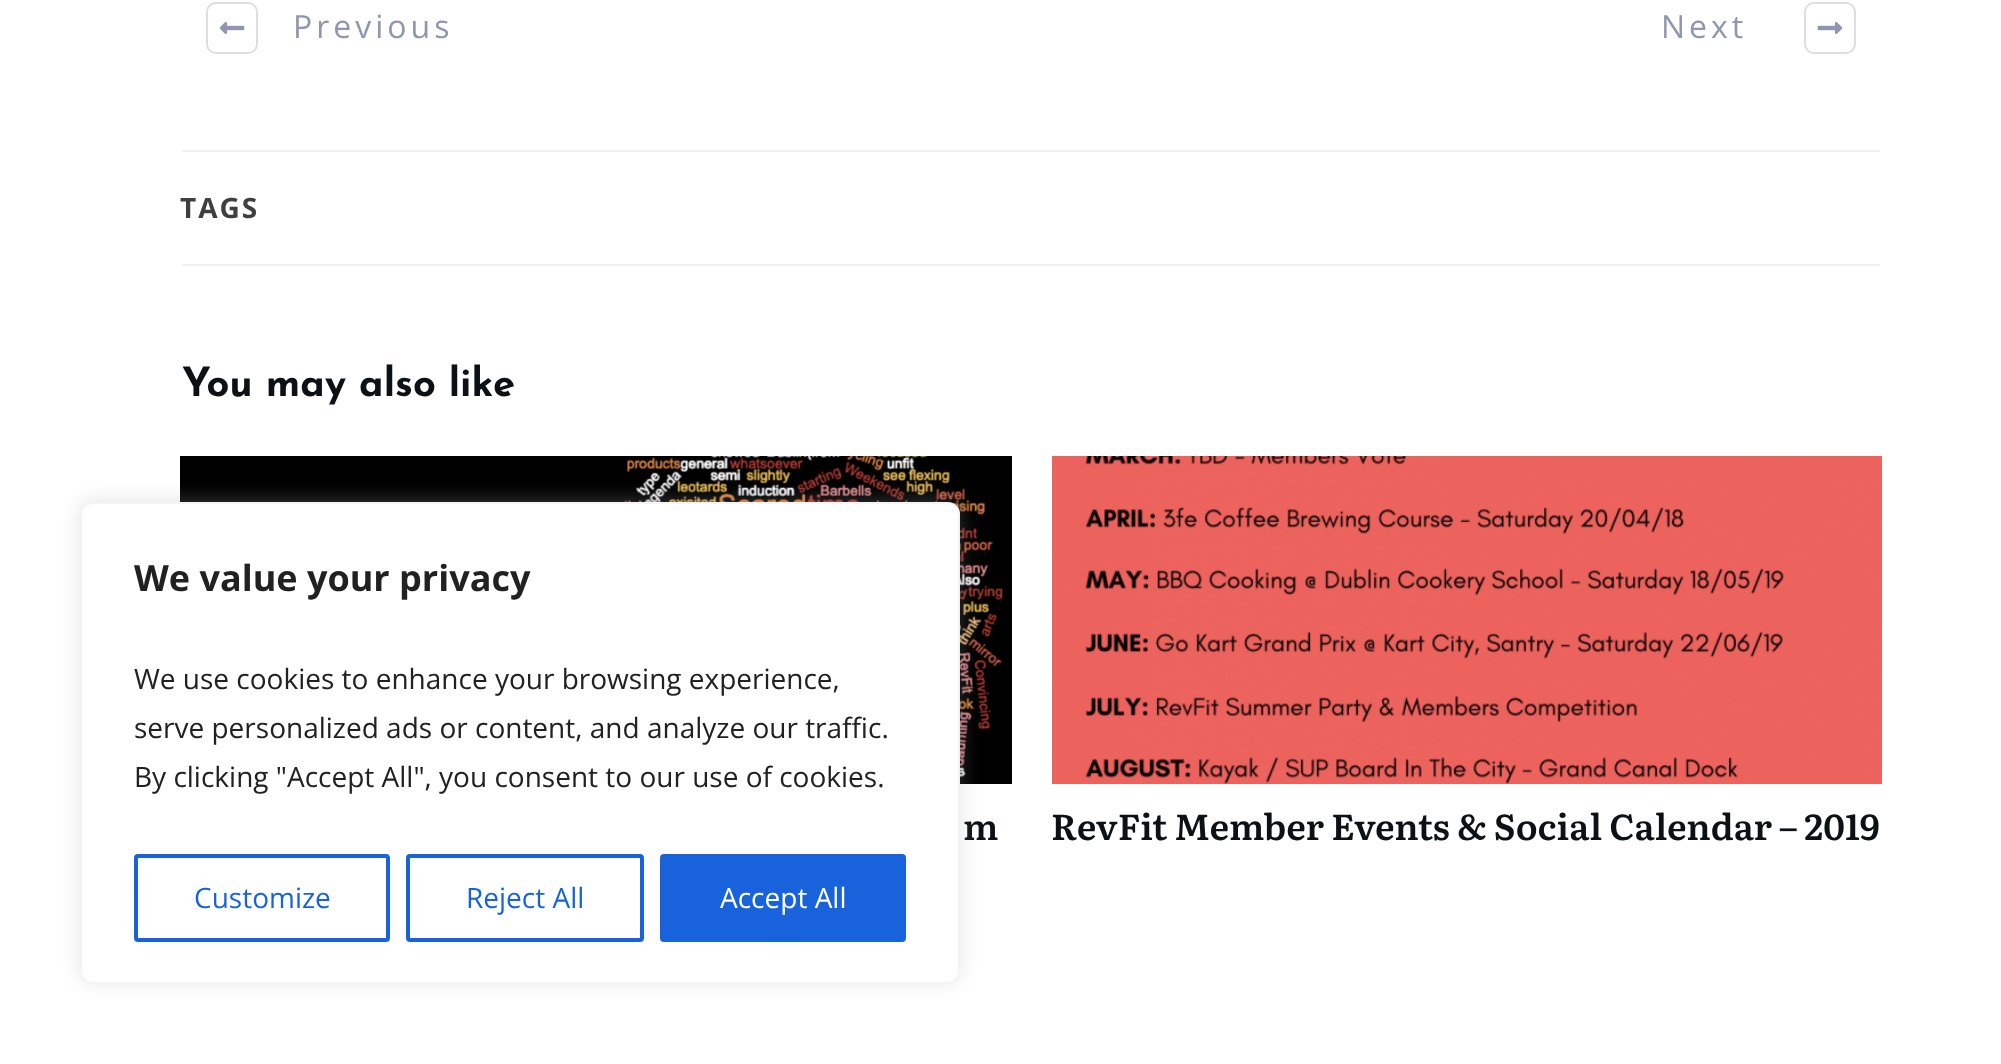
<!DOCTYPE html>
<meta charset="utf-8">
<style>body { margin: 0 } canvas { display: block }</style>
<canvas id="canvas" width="2001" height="1064"></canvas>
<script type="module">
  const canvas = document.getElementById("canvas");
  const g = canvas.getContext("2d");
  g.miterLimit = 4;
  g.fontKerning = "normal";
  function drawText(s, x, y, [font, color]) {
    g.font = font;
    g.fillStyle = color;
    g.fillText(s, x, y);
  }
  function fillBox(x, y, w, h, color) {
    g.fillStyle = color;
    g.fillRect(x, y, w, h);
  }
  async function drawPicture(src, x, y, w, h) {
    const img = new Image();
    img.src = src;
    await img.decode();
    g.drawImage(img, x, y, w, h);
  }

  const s1 = ["32px Open Sans", "#9096AF"];
  const s2 = ["bold 28px Open Sans", "#3F3F3F"];
  const s3 = ["bold 40px Josefin Sans", "#0C1115"];
  const s4 = ["600 36px Literata", "#0C1115"];
  const s5 = ["bold 36px Open Sans", "#212121"];
  const s6 = ["28px Open Sans", "#212121"];
  const s7 = ["28px Open Sans", "#1863DC"];
  const s8 = ["28px Open Sans", "#FFFFFF"];

  fillBox(0, 0, 2001, 1064, "#FFFFFF");
  g.beginPath();
  g.roundRect(207, 3, 50, 50, 9);
  g.strokeStyle = "#DEDEDE";
  g.lineWidth = 2;
  g.stroke();
  await drawPicture("pic1.png", 219, 22, 26, 12);
  g.letterSpacing = "4px";
  drawText("Previous", 293, 38, s1);
  drawText("Next", 1661, 38, s1);
  g.beginPath();
  g.roundRect(1805, 3, 50, 50, 9);
  g.stroke();
  await drawPicture("pic2.png", 1817, 22, 26, 12);
  fillBox(182, 150, 1698, 2, "#F0F0F0");
  g.letterSpacing = "2px";
  drawText("TAGS", 180, 218, s2);
  fillBox(182, 264, 1698, 2, "#F0F0F0");
  g.letterSpacing = "0px";
  drawText("You may also like", 182, 396, s3);
  await drawPicture("pic3.png", 180, 456, 832, 328);
  drawText("m", 963, 840, s4);
  await drawPicture("pic4.png", 1052, 456, 830, 328);
  drawText("RevFit Member Events & Social Calendar – 2019", 1051, 840, s4);
  g.fillStyle = "rgba(172, 171, 171, 0.3)";
  g.filter = "blur(10px)";
  g.beginPath();
  g.roundRect(80, 500, 880, 482, 12);
  g.fill();
  g.filter = "none";
  g.fillStyle = "#FFFFFF";
  g.beginPath();
  g.roundRect(81, 503, 878, 480, 11);
  g.fill();
  g.strokeStyle = "#F4F4F4";
  g.stroke();
  drawText("We value your privacy", 134, 591, s5);
  drawText("We use cookies to enhance your browsing experience,", 134, 689, s6);
  drawText("serve personalized ads or content, and analyze our traffic.", 134, 738, s6);
  drawText("By clicking \"Accept All\", you consent to our use of cookies.", 134, 787, s6);
  g.beginPath();
  g.roundRect(136, 856, 252, 84, 2);
  g.strokeStyle = "#1863DC";
  g.lineWidth = 4;
  g.stroke();
  drawText("Customize", 194, 908, s7);
  g.beginPath();
  g.roundRect(408, 856, 234, 84, 2);
  g.stroke();
  drawText("Reject All", 466, 908, s7);
  g.beginPath();
  g.roundRect(662, 856, 242, 84, 2);
  g.fill();
  g.stroke();
  drawText("Accept All", 720, 908, s8);
</script>
